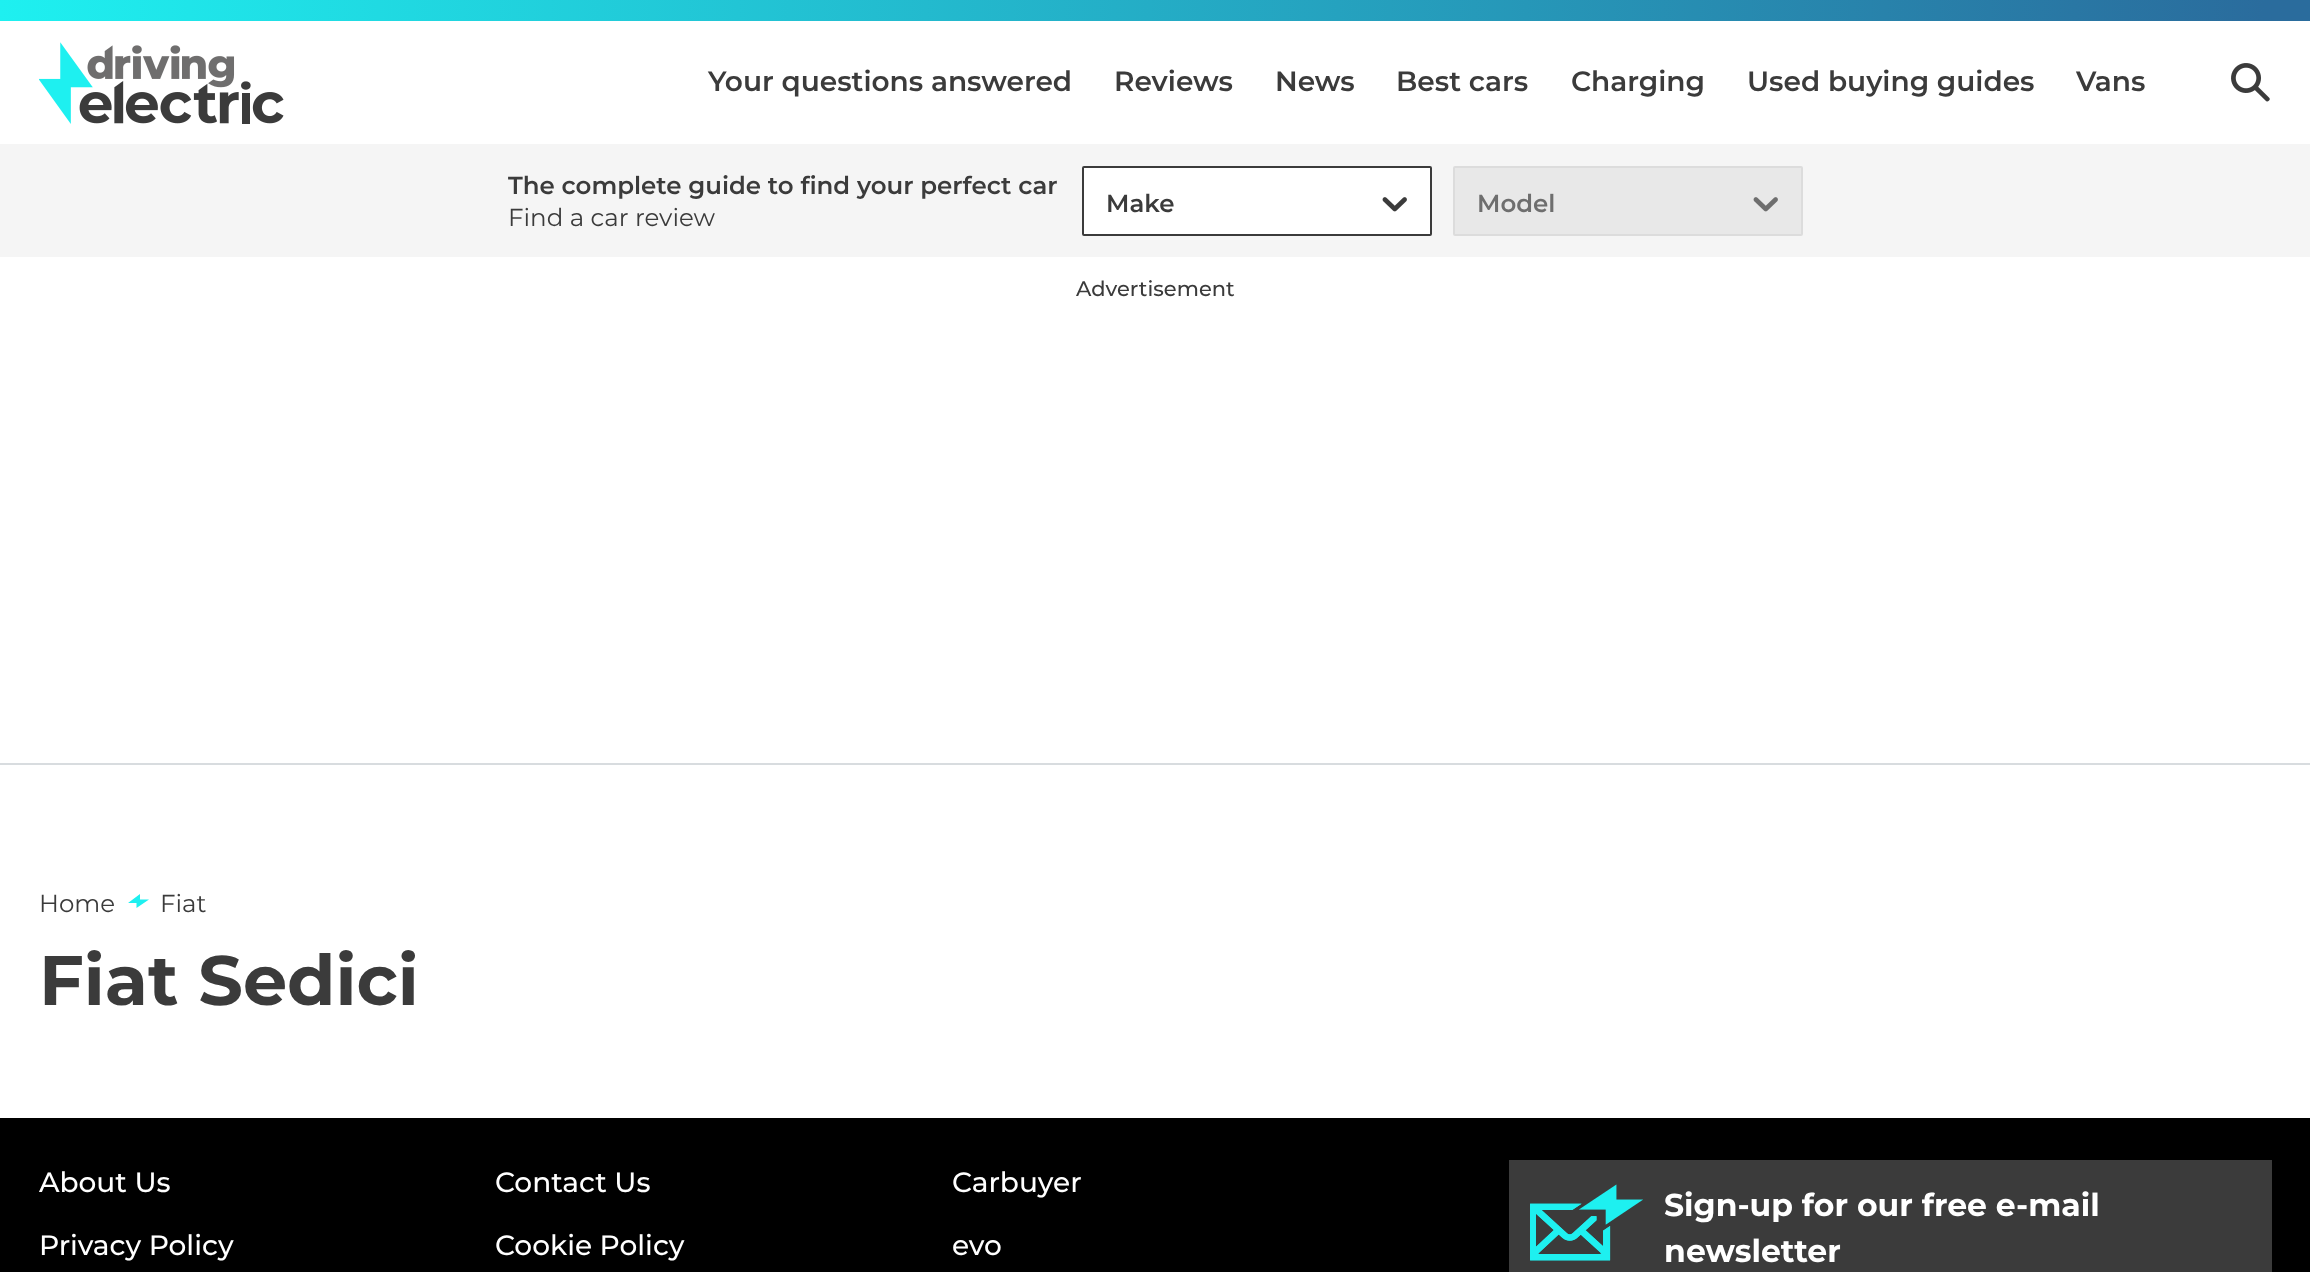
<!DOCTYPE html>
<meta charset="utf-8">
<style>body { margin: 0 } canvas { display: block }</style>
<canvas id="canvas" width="2310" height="1272"></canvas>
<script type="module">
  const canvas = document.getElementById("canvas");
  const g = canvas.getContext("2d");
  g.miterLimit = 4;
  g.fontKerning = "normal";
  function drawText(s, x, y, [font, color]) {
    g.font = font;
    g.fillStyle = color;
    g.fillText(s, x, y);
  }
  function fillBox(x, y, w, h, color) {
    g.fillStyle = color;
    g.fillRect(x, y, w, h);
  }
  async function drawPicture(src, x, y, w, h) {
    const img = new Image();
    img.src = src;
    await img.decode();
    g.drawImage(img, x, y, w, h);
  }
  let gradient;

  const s1 = ["600 28px Montserrat", "#3B3B3B"];
  const s2 = ["600 24.5px Montserrat", "#3B3B3B"];
  const s3 = ["24.5px Montserrat", "#3B3B3B"];
  const s4 = ["600 24.5px Montserrat", "#6E6E6E"];
  const s5 = ["500 21px Montserrat", "#3B3B3B"];
  const s6 = ["bold 70px Montserrat", "#3B3B3B"];
  const s7 = ["500 28px Montserrat", "#FFFFFF"];
  const s8 = ["bold 31.5px Montserrat", "#FFFFFF"];

  fillBox(0, 0, 2310, 1272, "#FFFFFF");
  gradient = g.createLinearGradient(0, 11, 2310, 10);
  gradient.addColorStop(0, "#1EF0F0");
  gradient.addColorStop(0.98, "#2A6C9D");
  g.fillStyle = gradient;
  g.fillRect(0, 0, 2310, 21);
  await drawPicture("pic1.png", 39, 42, 245, 82);
  drawText("Your questions answered", 708, 91, s1);
  drawText("Reviews", 1114, 91, s1);
  drawText("News", 1275, 91, s1);
  drawText("Best cars", 1396, 91, s1);
  drawText("Charging", 1571, 91, s1);
  drawText("Used buying guides", 1747, 91, s1);
  drawText("Vans", 2076, 91, s1);
  await drawPicture("pic2.png", 2231, 63, 39, 39);
  fillBox(0, 144, 2310, 113, "#F5F5F5");
  drawText("The complete guide to find your perfect car", 508, 194, s2);
  drawText("Find a car review", 508, 226, s3);
  g.fillStyle = "#FFFFFF";
  g.beginPath();
  g.roundRect(1083, 167, 348, 68, 1);
  g.fill();
  g.strokeStyle = "#3B3B3B";
  g.lineWidth = 2;
  g.stroke();
  drawText("Make", 1106, 212, s2);
  await drawPicture("pic3.png", 1382, 197, 25, 15);
  g.fillStyle = "#E8E8E8";
  g.beginPath();
  g.roundRect(1454, 167, 348, 68, 1);
  g.fill();
  g.strokeStyle = "#DCDCDC";
  g.stroke();
  drawText("Model", 1477, 212, s4);
  await drawPicture("pic4.png", 1753, 197, 25, 15);
  fillBox(0, 763, 2310, 2, "#D8DCDF");
  drawText("Advertisement", 1076, 296, s5);
  drawText("Home", 39, 912, s3);
  g.fillStyle = "#1EF0F0";
  g.beginPath();
  g.moveTo(140, 894);
  g.lineTo(128, 903);
  g.lineTo(136.5, 903);
  g.lineTo(136.5, 908);
  g.lineTo(149, 899.5);
  g.lineTo(140, 899.5);
  g.closePath();
  g.fill();
  drawText("Fiat", 160, 912, s3);
  drawText("Fiat Sedici", 39, 1005, s6);
  fillBox(0, 1118, 2310, 154, "#000000");
  drawText("About Us", 39, 1192, s7);
  drawText("Contact Us", 495, 1192, s7);
  drawText("Privacy Policy", 39, 1255, s7);
  drawText("Cookie Policy", 495, 1255, s7);
  drawText("Carbuyer", 952, 1192, s7);
  drawText("evo", 952, 1255, s7);
  fillBox(1509, 1160, 763, 112, "#3B3B3B");
  await drawPicture("pic5.png", 1530, 1184, 113, 77);
  drawText("Sign-up for our free e-mail", 1664, 1216, s8);
  drawText("newsletter", 1664, 1262, s8);
</script>
